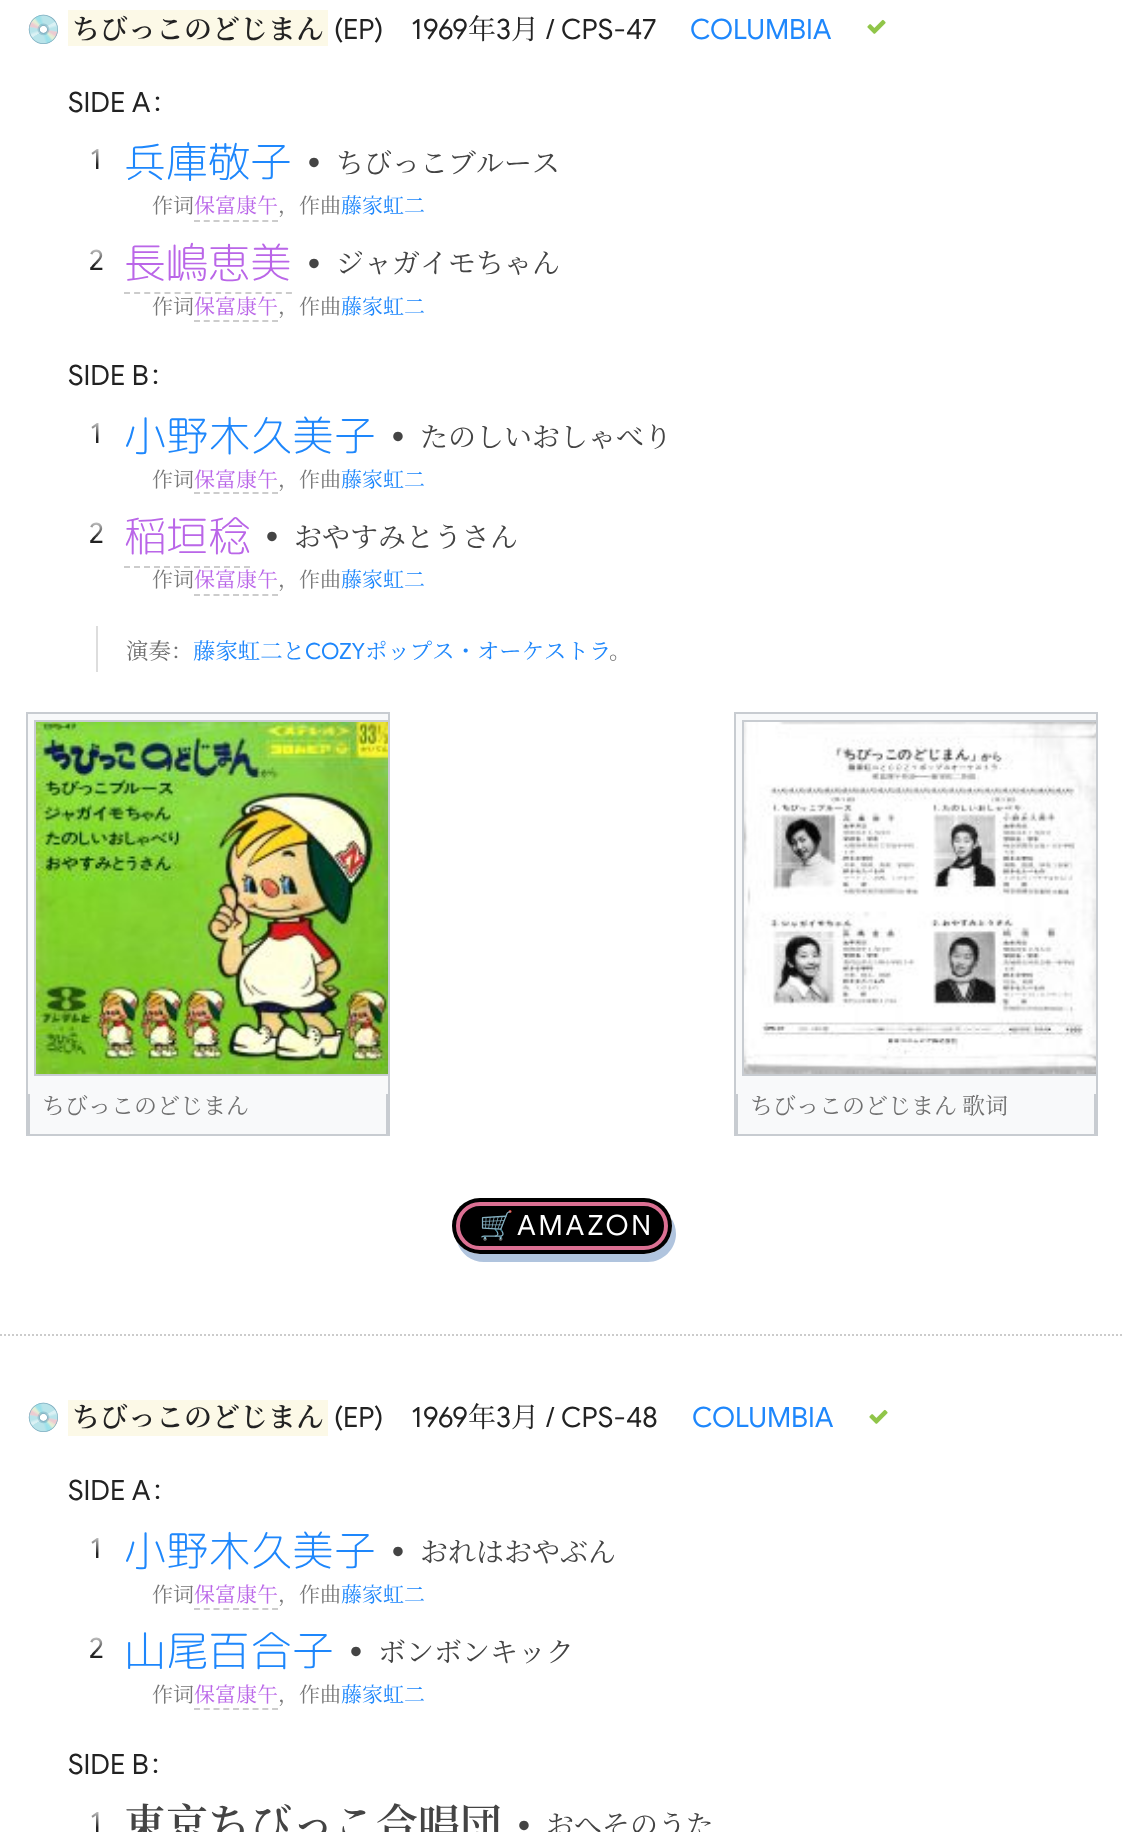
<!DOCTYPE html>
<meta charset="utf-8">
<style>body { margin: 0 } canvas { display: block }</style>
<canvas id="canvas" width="1124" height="1832"></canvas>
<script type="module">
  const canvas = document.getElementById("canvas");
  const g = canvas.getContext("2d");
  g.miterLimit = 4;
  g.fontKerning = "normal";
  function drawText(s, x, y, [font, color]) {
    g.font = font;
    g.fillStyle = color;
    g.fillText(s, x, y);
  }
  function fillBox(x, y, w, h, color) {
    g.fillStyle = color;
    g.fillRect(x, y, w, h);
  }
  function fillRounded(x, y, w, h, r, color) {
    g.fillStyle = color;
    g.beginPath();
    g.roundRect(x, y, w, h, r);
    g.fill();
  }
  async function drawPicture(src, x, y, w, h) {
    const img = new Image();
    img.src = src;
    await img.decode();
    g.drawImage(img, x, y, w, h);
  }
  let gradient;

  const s1 = ["28px Noto Color Emoji", "#222222"];
  const s2 = ["600 28px Noto Serif SC", "#222222"];
  const s3 = ["28px Google Sans", "#222222"];
  const s4 = ["28px Noto Serif SC", "#222222"];
  const s5 = ["28px Google Sans", "#1E87FC"];
  const s6 = ["300 42px 'Rounded Mplus 1c'", "#1E87FC"];
  const s7 = ["42px Google Sans", "#444444"];
  const s8 = ["28px Noto Serif SC", "#444444"];
  const s9 = ["21px Noto Serif SC", "#777777"];
  const s10 = ["21px Noto Serif JP", "#BA66E8"];
  const s11 = ["21px Noto Serif JP", "#1E87FC"];
  const s12 = ["300 42px 'Rounded Mplus 1c'", "#BA66E8"];
  const s13 = ["22.4px Noto Serif SC", "#6F6F6F"];
  const s14 = ["22.4px Noto Serif JP", "#1E87FC"];
  const s15 = ["22.4px Google Sans", "#1E87FC"];
  const s16 = ["23px Noto Serif SC", "#6F6F6F"];
  const s17 = ["28px Noto Color Emoji", "#FFFFFF"];
  const s18 = ["28px Google Sans", "#FFFFFF"];
  const s19 = ["600 42px Noto Serif SC", "#444444"];

  fillBox(0, 0, 1124, 1832, "#FFFFFF");
  g.beginPath();
  g.moveTo(0, 1335);
  g.lineTo(1124, 1335);
  g.strokeStyle = "#CCCCCC";
  g.lineWidth = 2;
  g.setLineDash([2, 2]);
  g.stroke();
  drawText("💿", 26, 39, s1);
  fillBox(68, 10, 260, 36, "#FCF9E7");
  drawText("ちびっこのどじまん", 72, 39, s2);
  drawText("(EP)", 334, 39, s3);
  drawText("1969", 411, 39, s3);
  drawText("年", 468, 39, s4);
  drawText("3", 496, 39, s3);
  drawText("月", 511, 39, s4);
  drawText("/ CPS-47", 546, 39, s3);
  drawText("COLUMBIA", 690, 39, s5);
  await drawPicture("pic1.png", 867, 19, 19, 15);
  drawText("SIDE A", 68, 112, s3);
  drawText("：", 151, 112, s4);
  g.font = "28px Google Sans";
  gradient = g.createLinearGradient(96, 131, 96, 187);
  gradient.addColorStop(0.2, "#FFFFFF");
  gradient.addColorStop(0.6, "#222222");
  g.fillStyle = gradient;
  g.fillText("1", 90, 169);
  drawText("兵庫敬子", 124, 177, s6);
  drawText("•", 306, 176, s7);
  drawText("ちびっこブルース", 336, 173, s8);
  drawText("作词", 152, 213, s9);
  drawText("保富康午", 194, 213, s10);
  g.beginPath();
  g.moveTo(194, 221);
  g.lineTo(278, 221);
  g.setLineDash([6, 3.76]);
  g.stroke();
  drawText("，作曲", 278, 213, s9);
  drawText("藤家虹二", 341, 213, s11);
  g.font = "28px Google Sans";
  gradient = g.createLinearGradient(96, 232, 96, 288);
  gradient.addColorStop(0.2, "#FFFFFF");
  gradient.addColorStop(0.6, "#222222");
  g.fillStyle = gradient;
  g.fillText("2", 89, 270);
  drawText("長嶋恵美", 124, 278, s12);
  g.beginPath();
  g.moveTo(124, 293);
  g.lineTo(292, 293);
  g.setLineDash([6, 4.12]);
  g.stroke();
  drawText("•", 306, 277, s7);
  drawText("ジャガイモちゃん", 336, 273, s8);
  drawText("作词", 152, 314, s9);
  drawText("保富康午", 194, 314, s10);
  g.beginPath();
  g.moveTo(194, 321);
  g.lineTo(278, 321);
  g.setLineDash([6, 3.76]);
  g.stroke();
  drawText("，作曲", 278, 314, s9);
  drawText("藤家虹二", 341, 314, s11);
  drawText("SIDE B", 68, 385, s3);
  drawText("：", 149, 385, s4);
  g.font = "28px Google Sans";
  gradient = g.createLinearGradient(96, 405, 96, 461);
  gradient.addColorStop(0.2, "#FFFFFF");
  gradient.addColorStop(0.6, "#222222");
  g.fillStyle = gradient;
  g.fillText("1", 90, 443);
  drawText("小野木久美子", 124, 451, s6);
  drawText("•", 390, 450, s7);
  drawText("たのしいおしゃべり", 420, 447, s8);
  drawText("作词", 152, 487, s9);
  drawText("保富康午", 194, 487, s10);
  g.beginPath();
  g.moveTo(194, 493);
  g.lineTo(278, 493);
  g.stroke();
  drawText("，作曲", 278, 487, s9);
  drawText("藤家虹二", 341, 487, s11);
  g.font = "28px Google Sans";
  gradient = g.createLinearGradient(96, 505, 96, 561);
  gradient.addColorStop(0.2, "#FFFFFF");
  gradient.addColorStop(0.6, "#222222");
  g.fillStyle = gradient;
  g.fillText("2", 89, 543);
  drawText("稲垣稔", 124, 551, s12);
  g.beginPath();
  g.moveTo(124, 567);
  g.lineTo(250, 567);
  g.setLineDash([6, 4]);
  g.stroke();
  drawText("•", 264, 550, s7);
  drawText("おやすみとうさん", 294, 547, s8);
  drawText("作词", 152, 587, s9);
  drawText("保富康午", 194, 587, s10);
  g.beginPath();
  g.moveTo(194, 595);
  g.lineTo(278, 595);
  g.setLineDash([6, 3.76]);
  g.stroke();
  drawText("，作曲", 278, 587, s9);
  drawText("藤家虹二", 341, 587, s11);
  fillBox(96, 626, 2, 46, "#DDDDDD");
  drawText("演奏：", 126, 659, s13);
  drawText("藤家虹二と", 193, 659, s14);
  drawText("COZY", 305, 659, s15);
  drawText("ポップス・オーケストラ", 365, 659, s14);
  drawText("。", 609, 659, s13);
  fillBox(28, 714, 360, 420, "#F8F9FA");
  fillBox(26, 712, 364, 2, "#C8CCD1");
  fillBox(388, 712, 2, 424, "#C8CCD1");
  fillBox(26, 712, 2, 424, "#C8CCD1");
  g.save();
  g.beginPath();
  g.rect(28, 714, 360, 368);
  g.clip();
  g.strokeStyle = "#C8CCD1";
  g.setLineDash([]);
  g.strokeRect(35, 721, 358, 354);
  g.restore();
  await drawPicture("pic2.png", 36, 722, 352, 352);
  fillBox(386, 1094, 2, 42, "#C8CCD1");
  fillBox(28, 1134, 360, 2, "#C8CCD1");
  fillBox(28, 1094, 2, 42, "#C8CCD1");
  drawText("ちびっこのどじまん", 42, 1114, s16);
  fillBox(736, 714, 360, 420, "#F8F9FA");
  fillBox(734, 712, 364, 2, "#C8CCD1");
  fillBox(1096, 712, 2, 424, "#C8CCD1");
  fillBox(734, 712, 2, 424, "#C8CCD1");
  g.save();
  g.beginPath();
  g.rect(736, 714, 360, 368);
  g.clip();
  g.strokeStyle = "#C8CCD1";
  g.setLineDash([]);
  g.strokeRect(743, 721, 358, 354);
  g.restore();
  await drawPicture("pic3.png", 744, 722, 352, 352);
  fillBox(1094, 1094, 2, 42, "#C8CCD1");
  fillBox(736, 1134, 360, 2, "#C8CCD1");
  fillBox(736, 1094, 2, 42, "#C8CCD1");
  g.wordSpacing = "-1px";
  drawText("ちびっこのどじまん 歌词", 750, 1114, s16);
  g.fillStyle = "#B0C4DE";
  g.beginPath();
  g.moveTo(457, 1242);
  g.bezierCurveTo(461, 1254, 471, 1262, 484, 1262);
  g.lineTo(648, 1262);
  g.bezierCurveTo(663, 1262, 676, 1249, 676, 1234);
  g.bezierCurveTo(676, 1228, 674, 1222, 671, 1218);
  g.bezierCurveTo(672, 1220, 672, 1223, 672, 1226);
  g.bezierCurveTo(672, 1241, 659, 1254, 644, 1254);
  g.lineTo(480, 1254);
  g.bezierCurveTo(471, 1254, 462, 1249, 457, 1242);
  g.closePath();
  g.fill();
  fillRounded(452, 1198, 220, 56, 28, "#000000");
  g.beginPath();
  g.roundRect(458, 1204, 208, 44, 22);
  g.strokeStyle = "#DB7093";
  g.lineWidth = 4;
  g.setLineDash([]);
  g.stroke();
  g.letterSpacing = "2.75px";
  g.wordSpacing = "0px";
  drawText("🛒", 479, 1235, s17);
  drawText("AMAZON", 517, 1235, s18);
  g.letterSpacing = "0px";
  drawText("💿", 26, 1427, s1);
  fillBox(68, 1400, 260, 36, "#FCF9E7");
  drawText("ちびっこのどじまん", 72, 1427, s2);
  drawText("(EP)", 334, 1427, s3);
  drawText("1969", 411, 1427, s3);
  drawText("年", 468, 1427, s4);
  drawText("3", 496, 1427, s3);
  drawText("月", 511, 1427, s4);
  drawText("/ CPS-48", 546, 1427, s3);
  drawText("COLUMBIA", 692, 1427, s5);
  await drawPicture("pic1.png", 869, 1409, 19, 15);
  drawText("SIDE A", 68, 1500, s3);
  drawText("：", 151, 1500, s4);
  g.font = "28px Google Sans";
  gradient = g.createLinearGradient(96, 1520, 96, 1576);
  gradient.addColorStop(0.2, "#FFFFFF");
  gradient.addColorStop(0.6, "#222222");
  g.fillStyle = gradient;
  g.fillText("1", 90, 1558);
  drawText("小野木久美子", 124, 1566, s6);
  drawText("•", 390, 1565, s7);
  drawText("おれはおやぶん", 420, 1562, s8);
  drawText("作词", 152, 1602, s9);
  drawText("保富康午", 194, 1602, s10);
  g.beginPath();
  g.moveTo(194, 1609);
  g.lineTo(278, 1609);
  g.strokeStyle = "#CCCCCC";
  g.lineWidth = 2;
  g.setLineDash([6, 3.76]);
  g.stroke();
  drawText("，作曲", 278, 1602, s9);
  drawText("藤家虹二", 341, 1602, s11);
  g.font = "28px Google Sans";
  gradient = g.createLinearGradient(96, 1620, 96, 1676);
  gradient.addColorStop(0.2, "#FFFFFF");
  gradient.addColorStop(0.6, "#222222");
  g.fillStyle = gradient;
  g.fillText("2", 89, 1658);
  drawText("山尾百合子", 124, 1666, s6);
  drawText("•", 348, 1665, s7);
  drawText("ボンボンキック", 378, 1662, s8);
  drawText("作词", 152, 1702, s9);
  drawText("保富康午", 194, 1702, s10);
  g.beginPath();
  g.moveTo(194, 1709);
  g.lineTo(278, 1709);
  g.stroke();
  drawText("，作曲", 278, 1702, s9);
  drawText("藤家虹二", 341, 1702, s11);
  drawText("SIDE B", 68, 1774, s3);
  drawText("：", 149, 1774, s4);
  g.font = "28px Google Sans";
  gradient = g.createLinearGradient(96, 1794, 96, 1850);
  gradient.addColorStop(0.2, "#FFFFFF");
  gradient.addColorStop(0.6, "#222222");
  g.fillStyle = gradient;
  g.fillText("1", 90, 1832);
  drawText("東京ちびっこ合唱団", 124, 1839, s19);
  drawText("•", 516, 1839, s7);
  drawText("おへそのうた", 546, 1835, s8);
</script>
